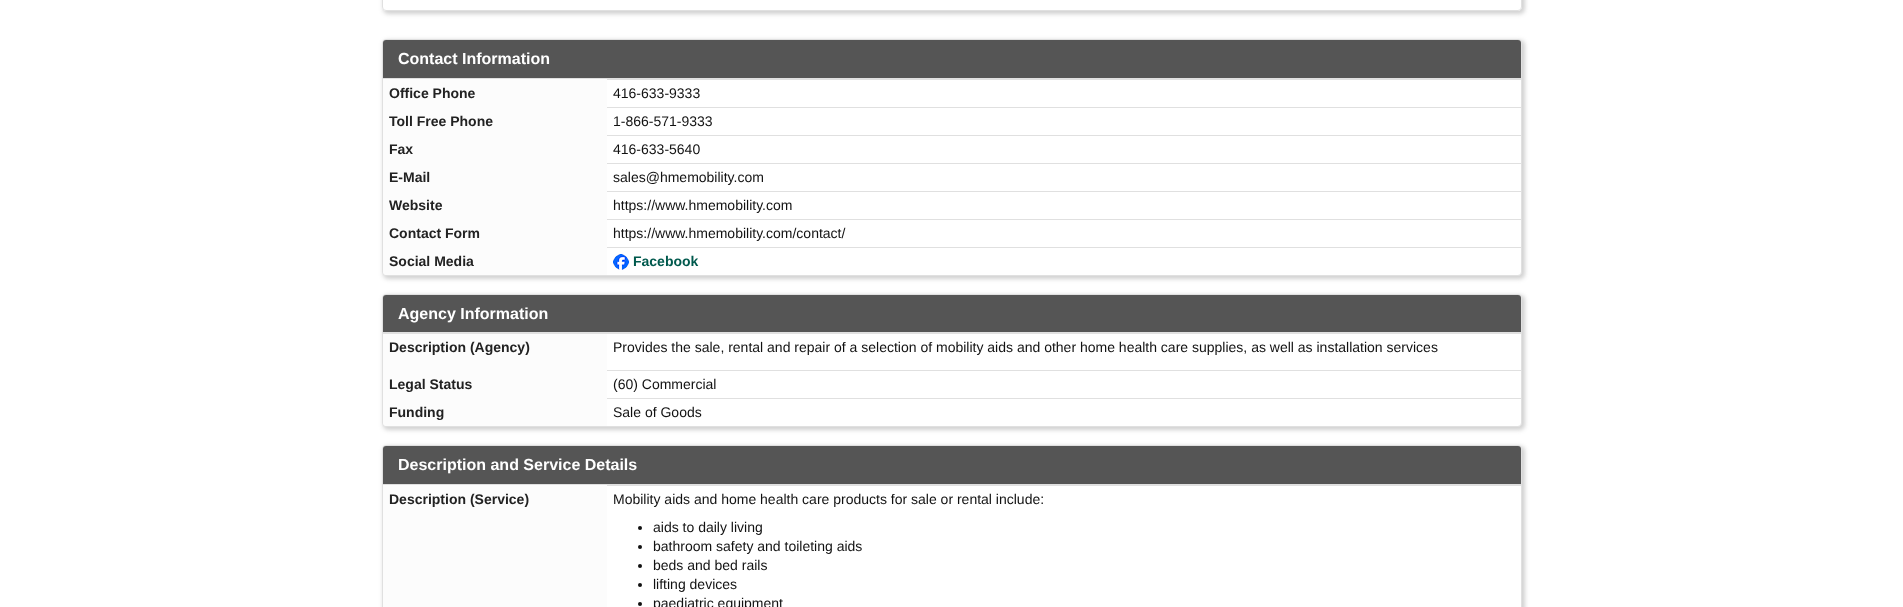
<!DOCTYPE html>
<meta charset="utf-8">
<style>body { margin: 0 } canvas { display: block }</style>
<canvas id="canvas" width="1903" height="607"></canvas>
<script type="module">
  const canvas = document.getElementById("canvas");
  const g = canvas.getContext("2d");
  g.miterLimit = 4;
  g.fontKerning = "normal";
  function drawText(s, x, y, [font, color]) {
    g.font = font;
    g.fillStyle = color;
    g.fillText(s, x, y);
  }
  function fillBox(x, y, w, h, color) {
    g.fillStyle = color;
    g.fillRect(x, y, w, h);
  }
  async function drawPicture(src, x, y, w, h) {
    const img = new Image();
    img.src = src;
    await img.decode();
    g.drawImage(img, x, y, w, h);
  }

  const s1 = ["bold 16px Liberation Sans", "#FFFFFF"];
  const s2 = ["bold 14px Liberation Sans", "#222222"];
  const s3 = ["14px Liberation Sans", "#111111"];
  const s4 = ["bold 14px Liberation Sans", "#00594D"];

  fillBox(0, 0, 1903, 607, "#FFFFFF");
  g.save();
  g.beginPath();
  g.moveTo(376, 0);
  g.lineTo(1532, 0);
  g.lineTo(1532, 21);
  g.lineTo(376, 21);
  g.closePath();
  g.moveTo(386, -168);
  g.lineTo(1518, -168);
  g.bezierCurveTo(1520, -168, 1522, -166, 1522, -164);
  g.lineTo(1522, 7);
  g.bezierCurveTo(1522, 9, 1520, 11, 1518, 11);
  g.lineTo(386, 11);
  g.bezierCurveTo(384, 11, 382, 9, 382, 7);
  g.lineTo(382, -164);
  g.bezierCurveTo(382, -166, 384, -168, 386, -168);
  g.closePath();
  g.clip("evenodd");
  g.fillStyle = "rgba(102, 102, 102, 0.3)";
  g.filter = "blur(2px)";
  g.beginPath();
  g.roundRect(383, -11, 1142, 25, 5);
  g.fill();
  g.filter = "none";
  g.restore();
  g.beginPath();
  g.roundRect(382.5, -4.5, 1139, 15, 3.5);
  g.strokeStyle = "#E0E0E0";
  g.stroke();
  g.fillStyle = "rgba(102, 102, 102, 0.3)";
  g.filter = "blur(2px)";
  g.beginPath();
  g.roundRect(383, 40, 1142, 239, 5);
  g.fill();
  g.filter = "none";
  g.fillStyle = "#FFFFFF";
  g.beginPath();
  g.roundRect(382.5, 39.5, 1139, 236, 3.5);
  g.fill();
  g.stroke();
  g.fillStyle = "#555555";
  g.beginPath();
  g.roundRect(383, 40, 1138, 39, [3, 3, 0, 0]);
  g.fill();
  fillBox(383, 78, 1138, 1, "#E0E0E0");
  drawText("Contact Information", 398, 64, s1);
  fillBox(607, 79, 914, 1, "#E0E0E0");
  fillBox(606, 107, 915, 1, "#E0E0E0");
  fillBox(606, 135, 915, 1, "#E0E0E0");
  fillBox(606, 163, 915, 1, "#E0E0E0");
  fillBox(606, 191, 915, 1, "#E0E0E0");
  fillBox(606, 219, 915, 1, "#E0E0E0");
  fillBox(383, 79, 224, 168, "#FCFCFC");
  drawText("Office Phone", 389, 98, s2);
  drawText("416-633-9333", 613, 98, s3);
  drawText("Toll Free Phone", 389, 126, s2);
  drawText("1-866-571-9333", 613, 126, s3);
  drawText("Fax", 389, 154, s2);
  drawText("416-633-5640", 613, 154, s3);
  drawText("E-Mail", 389, 182, s2);
  drawText("sales@hmemobility.com", 613, 182, s3);
  drawText("Website", 389, 210, s2);
  drawText("https://www.hmemobility.com", 613, 210, s3);
  drawText("Contact Form", 389, 238, s2);
  drawText("https://www.hmemobility.com/contact/", 613, 238, s3);
  fillBox(606, 247, 915, 1, "#E0E0E0");
  g.fillStyle = "#FCFCFC";
  g.beginPath();
  g.roundRect(383, 247, 224, 28, [0, 0, 0, 4]);
  g.fill();
  drawText("Social Media", 389, 266, s2);
  await drawPicture("pic1.png", 613, 254, 16, 16);
  drawText("Facebook", 633, 266, s4);
  g.fillStyle = "rgba(102, 102, 102, 0.3)";
  g.filter = "blur(2px)";
  g.beginPath();
  g.roundRect(383, 295, 1142, 135, 5);
  g.fill();
  g.filter = "none";
  g.fillStyle = "#FFFFFF";
  g.beginPath();
  g.roundRect(382.5, 294.5, 1139, 132, 3.5);
  g.fill();
  g.stroke();
  g.fillStyle = "#555555";
  g.beginPath();
  g.roundRect(383, 295, 1138, 38, [3, 3, 0, 0]);
  g.fill();
  fillBox(383, 332, 1138, 2, "#E0E0E0");
  drawText("Agency Information", 398, 319, s1);
  fillBox(606, 370, 915, 1, "#E0E0E0");
  fillBox(606, 398, 915, 1, "#E0E0E0");
  fillBox(383, 334, 224, 65, "#FCFCFC");
  drawText("Description (Agency)", 389, 352, s2);
  drawText("Provides the sale, rental and repair of a selection of mobility aids and other home health care supplies, as well as installation services", 613, 352, s3);
  drawText("Legal Status", 389, 389, s2);
  drawText("(60) Commercial", 613, 389, s3);
  g.fillStyle = "#FCFCFC";
  g.beginPath();
  g.roundRect(383, 399, 224, 27, [0, 0, 0, 4]);
  g.fill();
  drawText("Funding", 389, 417, s2);
  drawText("Sale of Goods", 613, 417, s3);
  g.fillStyle = "rgba(102, 102, 102, 0.3)";
  g.filter = "blur(2px)";
  g.beginPath();
  g.roundRect(383, 446, 1142, 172, 5);
  g.fill();
  g.filter = "none";
  g.fillStyle = "#FFFFFF";
  g.beginPath();
  g.roundRect(382.5, 445.5, 1139, 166, 3.5);
  g.fill();
  g.stroke();
  g.fillStyle = "#555555";
  g.beginPath();
  g.roundRect(383, 446, 1138, 39, [3, 3, 0, 0]);
  g.fill();
  fillBox(383, 484, 1138, 1, "#E0E0E0");
  drawText("Description and Service Details", 398, 470, s1);
  fillBox(607, 485, 914, 1, "#E0E0E0");
  fillBox(383, 485, 224, 122, "#FCFCFC");
  drawText("Description (Service)", 389, 504, s2);
  drawText("Mobility aids and home health care products for sale or rental include:", 613, 504, s3);
  g.beginPath();
  g.arc(640, 528, 2, 0, Math.PI * 2);
  g.fill();
  drawText("aids to daily living", 653, 532, s3);
  g.beginPath();
  g.arc(640, 547, 2, 0, Math.PI * 2);
  g.fill();
  drawText("bathroom safety and toileting aids", 653, 551, s3);
  g.beginPath();
  g.arc(640, 566, 2, 0, Math.PI * 2);
  g.fill();
  drawText("beds and bed rails", 653, 570, s3);
  g.beginPath();
  g.arc(640, 585, 2, 0, Math.PI * 2);
  g.fill();
  drawText("lifting devices", 653, 589, s3);
  g.beginPath();
  g.arc(640, 604, 2, 0, Math.PI * 2);
  g.fill();
  drawText("paediatric equipment", 653, 608, s3);
</script>
